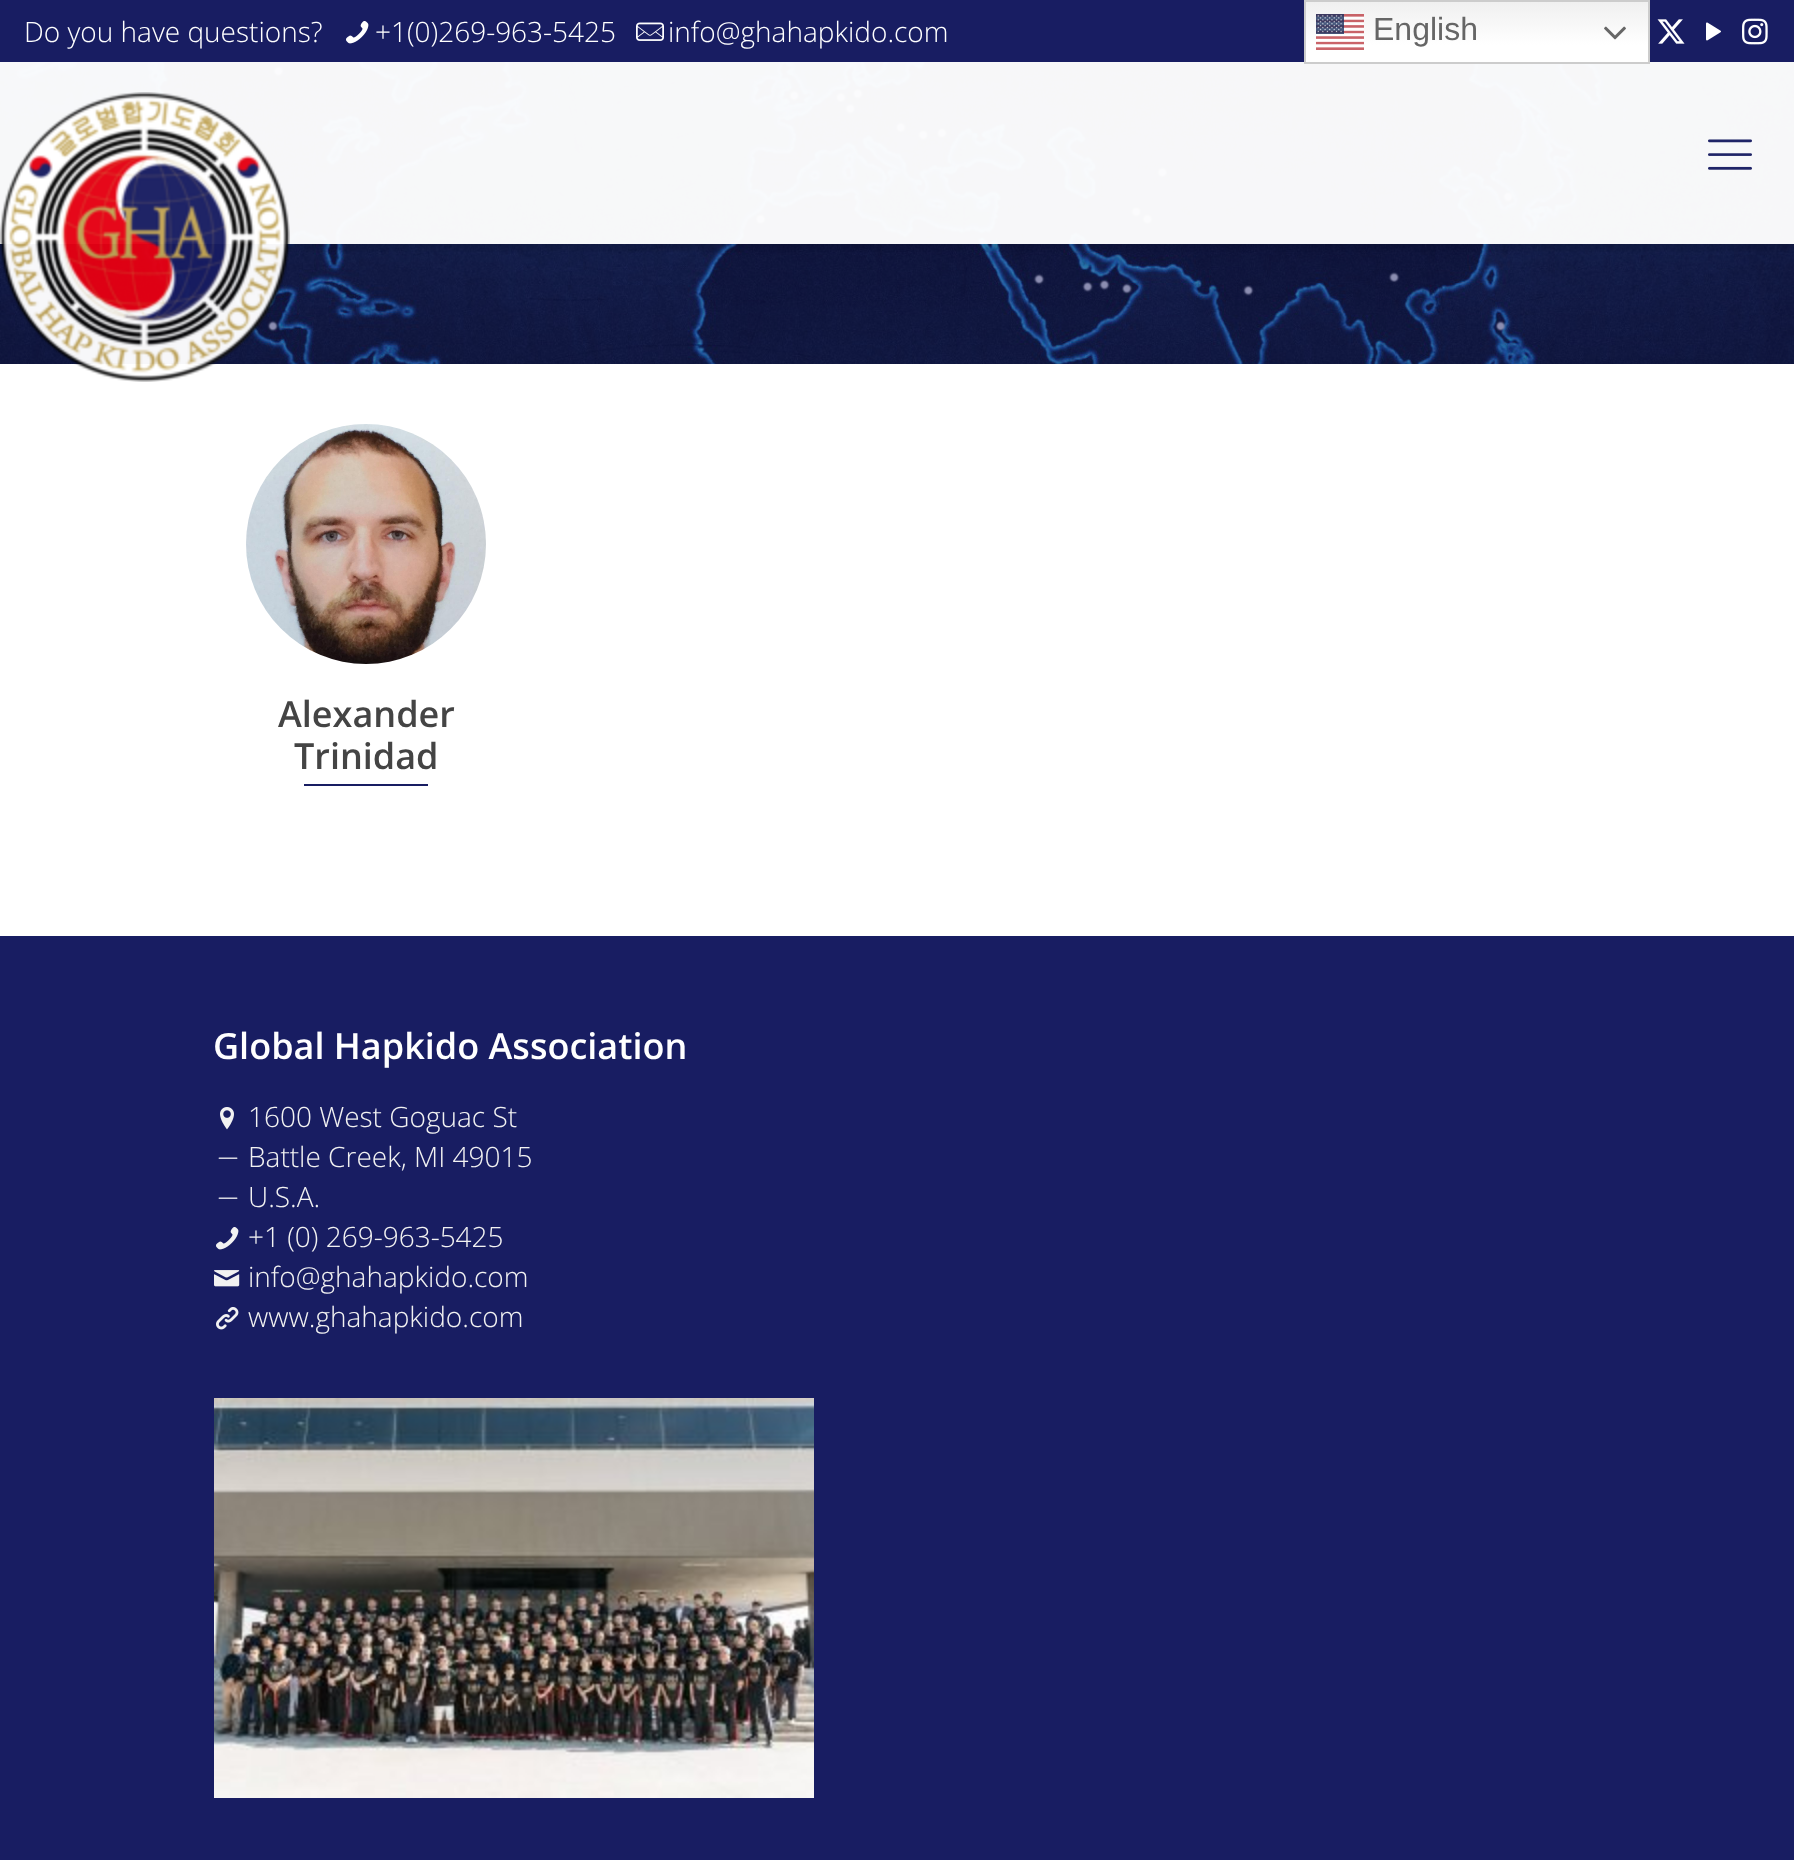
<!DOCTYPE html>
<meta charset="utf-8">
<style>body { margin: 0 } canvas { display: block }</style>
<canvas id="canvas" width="1794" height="1860"></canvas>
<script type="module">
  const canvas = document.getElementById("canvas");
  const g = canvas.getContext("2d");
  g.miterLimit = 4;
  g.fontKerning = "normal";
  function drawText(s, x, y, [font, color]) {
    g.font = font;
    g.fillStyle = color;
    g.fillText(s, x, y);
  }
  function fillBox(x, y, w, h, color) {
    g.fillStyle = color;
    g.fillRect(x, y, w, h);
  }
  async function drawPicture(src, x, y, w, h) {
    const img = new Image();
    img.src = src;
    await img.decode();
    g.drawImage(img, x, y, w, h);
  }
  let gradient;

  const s1 = ["300 28px Open Sans", "#FFFFFF"];
  const s2 = ["600 36px Open Sans", "#444444"];
  const s3 = ["600 36px Open Sans", "#FFFFFF"];
  const s4 = ["300 28px Open Sans", "#F2F2F2"];
  const s5 = ["32px Liberation Sans", "#666666"];

  fillBox(0, 0, 1794, 1860, "#FFFFFF");
  fillBox(0, 0, 1794, 364, "#181D62");
  await drawPicture("pic1.png", 0, 62, 1794, 302);
  drawText("Do you have questions?", 24, 42, s1);
  await drawPicture("pic2.png", 346, 21, 23, 23);
  drawText("+1(0)269-963-5425", 375, 42, s1);
  await drawPicture("pic3.png", 636, 22, 28, 19);
  drawText("info@ghahapkido.com", 668, 42, s1);
  await drawPicture("pic4.png", 1657, 19, 28, 25);
  await drawPicture("pic5.png", 1706, 22, 15, 19);
  await drawPicture("pic6.png", 1742, 18, 26, 27);
  g.save();
  g.beginPath();
  g.rect(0, 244, 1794, 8);
  g.clip();
  g.fillStyle = "rgba(0, 0, 0, 0.1)";
  g.filter = "blur(5px)";
  g.beginPath();
  g.rect(0, 66, 1794, 182);
  g.fill();
  g.filter = "none";
  g.restore();
  fillBox(0, 62, 1794, 182, "rgba(255, 255, 255, 0.97)");
  await drawPicture("pic7.png", 0, 92, 290, 290);
  await drawPicture("pic8.png", 1708, 139, 44, 31);
  await drawPicture("pic9.png", 246, 424, 240, 240);
  drawText("Alexander", 278, 727, s2);
  drawText("Trinidad", 294, 769, s2);
  fillBox(304, 784, 124, 2, "#181D62");
  fillBox(0, 936, 1794, 924, "#181D62");
  drawText("Global Hapkido Association", 213, 1059, s3);
  await drawPicture("pic10.png", 220, 1107, 14, 23);
  drawText("1600 West Goguac St", 248, 1127, s4);
  await drawPicture("pic11.png", 218, 1157, 20, 2);
  drawText("Battle Creek, MI 49015", 248, 1167, s4);
  await drawPicture("pic11.png", 218, 1197, 20, 2);
  drawText("U.S.A.", 248, 1207, s4);
  await drawPicture("pic12.png", 216, 1227, 23, 23);
  drawText("+1 (0) 269-963-5425", 248, 1247, s4);
  await drawPicture("pic13.png", 214, 1270, 26, 17);
  drawText("info@ghahapkido.com", 248, 1287, s4);
  await drawPicture("pic14.png", 216, 1307, 23, 23);
  drawText("www.ghahapkido.com", 248, 1327, s4);
  await drawPicture("pic15.png", 214, 1398, 600, 400);
  gradient = g.createLinearGradient(1477, 0, 1477, 64);
  gradient.addColorStop(0, "#EFEFEF");
  gradient.addColorStop(0.7, "#FFFFFF");
  g.fillStyle = gradient;
  g.fillRect(1306, 2, 342, 60);
  g.strokeStyle = "#CCCCCC";
  g.lineWidth = 2;
  g.strokeRect(1305, 1, 344, 62);
  await drawPicture("pic16.png", 1316, 14, 48, 36);
  drawText("English", 1373, 40, s5);
  await drawPicture("pic17.png", 1604, 26, 22, 14);
</script>
